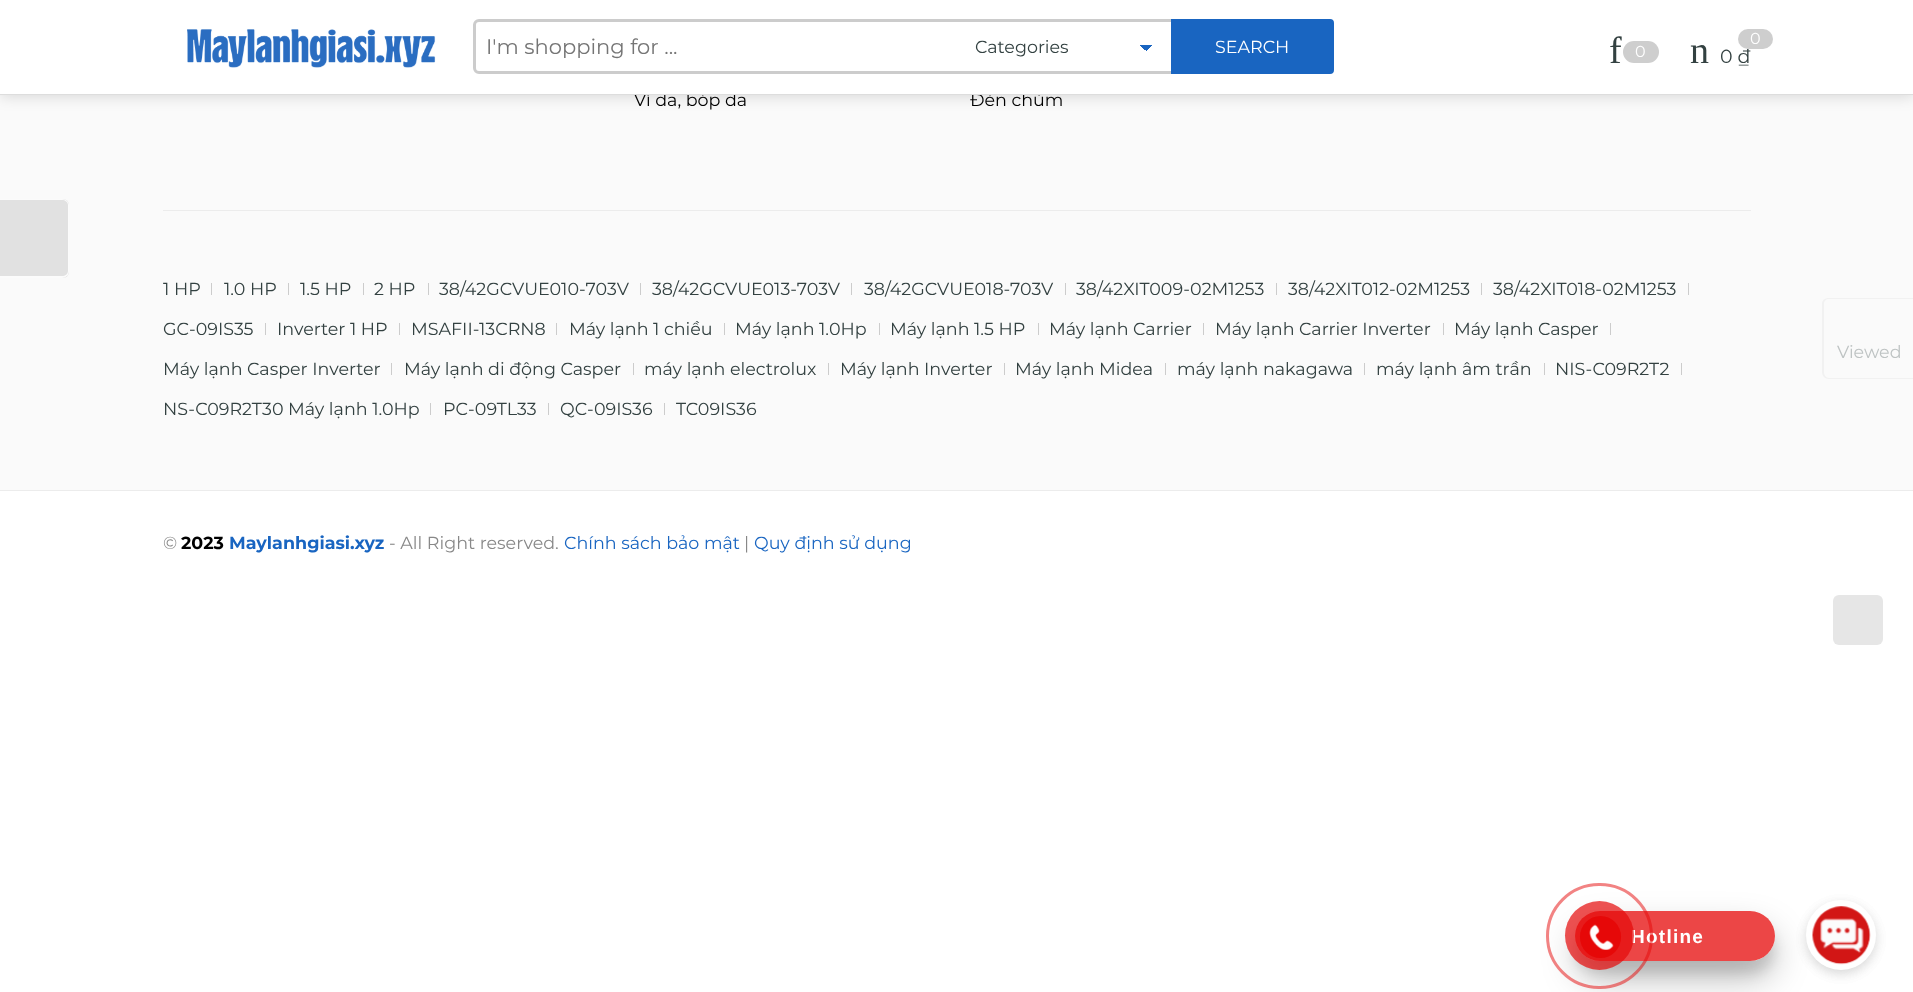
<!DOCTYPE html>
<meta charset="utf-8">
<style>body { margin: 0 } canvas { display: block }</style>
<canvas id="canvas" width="1913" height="992"></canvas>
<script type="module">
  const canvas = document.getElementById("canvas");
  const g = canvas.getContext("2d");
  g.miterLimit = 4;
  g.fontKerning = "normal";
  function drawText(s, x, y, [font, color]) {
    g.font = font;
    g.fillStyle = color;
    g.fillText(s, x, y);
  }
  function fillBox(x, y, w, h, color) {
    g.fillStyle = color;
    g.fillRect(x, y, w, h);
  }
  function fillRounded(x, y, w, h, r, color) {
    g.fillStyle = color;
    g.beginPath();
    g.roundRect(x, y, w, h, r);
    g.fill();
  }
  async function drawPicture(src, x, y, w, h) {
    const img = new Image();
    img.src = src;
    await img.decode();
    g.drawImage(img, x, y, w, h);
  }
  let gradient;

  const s1 = ["17.5px Montserrat", "#000000"];
  const s2 = ["21px Montserrat", "#757575"];
  const s3 = ["17.5px Montserrat", "#334141"];
  const s4 = ["17.5px Montserrat", "#FFFFFF"];
  const s5 = ["38px Liberation Serif", "#334141"];
  const s6 = ["16px Montserrat", "#FFFFFF"];
  const s7 = ["19px Montserrat", "#334141"];
  const s8 = ["17.5px Montserrat", "#888888"];
  const s9 = ["bold 17.5px Montserrat", "#000000"];
  const s10 = ["bold 17.5px Montserrat", "#1965C1"];
  const s11 = ["17.5px Montserrat", "#1965C1"];
  const s12 = ["17.5px Montserrat", "#BEC3C3"];
  const s13 = ["bold 19px Liberation Sans", "#FFFFFF"];

  fillBox(0, 0, 1913, 992, "#FFFFFF");
  fillBox(0, 95, 1913, 395, "#FAFAFA");
  g.fillStyle = "rgba(0, 0, 0, 0.15)";
  g.filter = "blur(7.5px)";
  g.beginPath();
  g.rect(0, 1, 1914, 95);
  g.fill();
  g.filter = "none";
  drawText("Ví da, bóp da", 634, 106, s1);
  drawText("Đèn chùm", 970, 106, s1);
  fillBox(0, 0, 1913, 94, "#FFFFFF");
  fillBox(0, 94, 1913, 1, "#DDDDDD");
  await drawPicture("pic1.png", 187, 29, 249, 39);
  g.beginPath();
  g.roundRect(474.5, 20.5, 858, 52, 4.5);
  g.strokeStyle = "#CCCCCC";
  g.lineWidth = 3;
  g.stroke();
  drawText("I'm shopping for ...", 486, 54, s2);
  gradient = g.createLinearGradient(1146, 45, 1153, 51);
  gradient.addColorStop(0.5, "#1965C1");
  gradient.addColorStop(0.5, "#FFFFFF");
  g.fillStyle = gradient;
  g.fillRect(1146, 45, 7, 6);
  gradient = g.createLinearGradient(1140, 51, 1146, 45);
  gradient.addColorStop(0.5, "#FFFFFF");
  gradient.addColorStop(0.5, "#1965C1");
  g.fillStyle = gradient;
  g.fillRect(1140, 45, 6, 5);
  drawText("Categories", 975, 53, s3);
  g.fillStyle = "#1965C1";
  g.beginPath();
  g.roundRect(1172.5, 20.5, 160, 52, [0, 2.5, 2.5, 0]);
  g.fill();
  g.strokeStyle = "#1965C1";
  g.stroke();
  drawText("SEARCH", 1215, 53, s4);
  drawText("f", 1609, 63, s5);
  fillRounded(1623, 41, 36, 22, 11, "#CECECE");
  drawText("0", 1635, 57, s6);
  fillRounded(1738, 29, 35, 20, 10, "#CECECE");
  drawText("0", 1750, 44, s6);
  drawText("n", 1690, 63, s5);
  drawText("0 ₫", 1720, 63, s7);
  fillBox(163, 210, 1588, 1, "#ECECEC");
  drawText("1 HP", 163, 295, s3);
  fillBox(211, 283, 1, 12, "#CCCCCC");
  drawText("1.0 HP", 224, 295, s3);
  fillBox(288, 283, 1, 12, "#CCCCCC");
  drawText("1.5 HP", 300, 295, s3);
  fillBox(363, 283, 1, 12, "#CCCCCC");
  drawText("2 HP", 374, 295, s3);
  fillBox(428, 283, 1, 12, "#CCCCCC");
  drawText("38/42GCVUE010-703V", 439, 295, s3);
  fillBox(640, 283, 1, 12, "#CCCCCC");
  drawText("38/42GCVUE013-703V", 652, 295, s3);
  fillBox(851, 283, 1, 12, "#CCCCCC");
  drawText("38/42GCVUE018-703V", 864, 295, s3);
  fillBox(1065, 283, 1, 12, "#CCCCCC");
  drawText("38/42XIT009-02M1253", 1076, 295, s3);
  fillBox(1276, 283, 1, 12, "#CCCCCC");
  drawText("38/42XIT012-02M1253", 1288, 295, s3);
  fillBox(1481, 283, 1, 12, "#CCCCCC");
  drawText("38/42XIT018-02M1253", 1493, 295, s3);
  fillBox(1688, 283, 1, 12, "#CCCCCC");
  drawText("GC-09IS35", 163, 335, s3);
  fillBox(265, 323, 1, 12, "#CCCCCC");
  drawText("Inverter 1 HP", 277, 335, s3);
  fillBox(399, 323, 1, 12, "#CCCCCC");
  drawText("MSAFII-13CRN8", 411, 335, s3);
  fillBox(556, 323, 1, 12, "#CCCCCC");
  drawText("Máy lạnh 1 chiều", 569, 335, s3);
  fillBox(724, 323, 1, 12, "#CCCCCC");
  drawText("Máy lạnh 1.0Hp", 735, 335, s3);
  fillBox(879, 323, 1, 12, "#CCCCCC");
  drawText("Máy lạnh 1.5 HP", 890, 335, s3);
  fillBox(1038, 323, 1, 12, "#CCCCCC");
  drawText("Máy lạnh Carrier", 1049, 335, s3);
  fillBox(1203, 323, 1, 12, "#CCCCCC");
  drawText("Máy lạnh Carrier Inverter", 1215, 335, s3);
  fillBox(1443, 323, 1, 12, "#CCCCCC");
  drawText("Máy lạnh Casper", 1454, 335, s3);
  fillBox(1610, 323, 1, 12, "#CCCCCC");
  drawText("Máy lạnh Casper Inverter", 163, 375, s3);
  fillBox(391, 363, 1, 12, "#CCCCCC");
  drawText("Máy lạnh di động Casper", 404, 375, s3);
  fillBox(633, 363, 1, 12, "#CCCCCC");
  drawText("máy lạnh electrolux", 644, 375, s3);
  fillBox(828, 363, 1, 12, "#CCCCCC");
  drawText("Máy lạnh Inverter", 840, 375, s3);
  fillBox(1004, 363, 1, 12, "#CCCCCC");
  drawText("Máy lạnh Midea", 1015, 375, s3);
  fillBox(1165, 363, 1, 12, "#CCCCCC");
  drawText("máy lạnh nakagawa", 1177, 375, s3);
  fillBox(1364, 363, 1, 12, "#CCCCCC");
  drawText("máy lạnh âm trần", 1376, 375, s3);
  fillBox(1544, 363, 1, 12, "#CCCCCC");
  drawText("NIS-C09R2T2", 1555, 375, s3);
  fillBox(1681, 363, 1, 12, "#CCCCCC");
  drawText("NS-C09R2T30 Máy lạnh 1.0Hp", 163, 415, s3);
  fillBox(430, 403, 1, 12, "#CCCCCC");
  drawText("PC-09TL33", 443, 415, s3);
  fillBox(548, 403, 1, 12, "#CCCCCC");
  drawText("QC-09IS36", 560, 415, s3);
  fillBox(664, 403, 1, 12, "#CCCCCC");
  drawText("TC09IS36", 676, 415, s3);
  fillBox(0, 490, 1913, 1, "#ECECEC");
  drawText("©", 163, 549, s8);
  drawText("2023", 181, 549, s9);
  drawText("Maylanhgiasi.xyz", 229, 549, s10);
  drawText("- All Right reserved.", 389, 549, s8);
  drawText("Chính sách bảo mật", 564, 549, s11);
  drawText("|", 744, 549, s8);
  drawText("Quy định sử dụng", 754, 549, s11);
  g.fillStyle = "#E1E1E1";
  g.beginPath();
  g.roundRect(0, 199, 69, 79, [0, 6, 6, 0]);
  g.fill();
  g.fillStyle = "#FBFBFB";
  g.beginPath();
  g.moveTo(0, 199);
  g.lineTo(62, 199);
  g.bezierCurveTo(66, 199, 69, 202, 69, 205);
  g.lineTo(69, 271);
  g.bezierCurveTo(69, 275, 66, 278, 62, 278);
  g.lineTo(0, 278);
  g.closePath();
  g.moveTo(0, 200);
  g.lineTo(62, 200);
  g.bezierCurveTo(65, 200, 68, 202, 68, 205);
  g.lineTo(68, 271);
  g.bezierCurveTo(68, 274, 65, 276, 62, 276);
  g.lineTo(0, 276);
  g.closePath();
  g.fill("evenodd");
  g.fillStyle = "#F1F1F1";
  g.beginPath();
  g.moveTo(1829, 298);
  g.lineTo(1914, 298);
  g.lineTo(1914, 379);
  g.lineTo(1829, 379);
  g.bezierCurveTo(1825, 379, 1822, 376, 1822, 372);
  g.lineTo(1822, 304);
  g.bezierCurveTo(1822, 300, 1825, 298, 1829, 298);
  g.closePath();
  g.moveTo(1829, 299);
  g.lineTo(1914, 299);
  g.lineTo(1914, 378);
  g.lineTo(1829, 378);
  g.bezierCurveTo(1826, 378, 1824, 375, 1824, 372);
  g.lineTo(1824, 304);
  g.bezierCurveTo(1824, 301, 1826, 299, 1829, 299);
  g.closePath();
  g.fill("evenodd");
  drawText("Viewed", 1837, 358, s12);
  fillRounded(1833, 595, 50, 50, 6, "#E6E6E6");
  g.save();
  g.beginPath();
  g.moveTo(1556, 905);
  g.lineTo(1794, 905);
  g.lineTo(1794, 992);
  g.lineTo(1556, 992);
  g.closePath();
  g.moveTo(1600, 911);
  g.lineTo(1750, 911);
  g.bezierCurveTo(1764, 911, 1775, 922, 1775, 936);
  g.bezierCurveTo(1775, 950, 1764, 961, 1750, 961);
  g.lineTo(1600, 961);
  g.bezierCurveTo(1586, 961, 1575, 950, 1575, 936);
  g.bezierCurveTo(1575, 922, 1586, 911, 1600, 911);
  g.closePath();
  g.clip("evenodd");
  g.fillStyle = "rgba(0, 0, 0, 0.1)";
  g.filter = "blur(6px)";
  g.beginPath();
  g.roundRect(1575, 924, 200, 50, 25);
  g.fill();
  g.filter = "none";
  g.restore();
  g.save();
  g.beginPath();
  g.moveTo(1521, 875);
  g.lineTo(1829, 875);
  g.lineTo(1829, 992);
  g.lineTo(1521, 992);
  g.closePath();
  g.moveTo(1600, 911);
  g.lineTo(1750, 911);
  g.bezierCurveTo(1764, 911, 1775, 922, 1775, 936);
  g.bezierCurveTo(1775, 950, 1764, 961, 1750, 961);
  g.lineTo(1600, 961);
  g.bezierCurveTo(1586, 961, 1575, 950, 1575, 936);
  g.bezierCurveTo(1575, 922, 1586, 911, 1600, 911);
  g.closePath();
  g.clip("evenodd");
  g.fillStyle = "rgba(0, 0, 0, 0.25)";
  g.filter = "blur(17.5px)";
  g.beginPath();
  g.roundRect(1575, 929, 200, 50, 25);
  g.fill();
  g.filter = "none";
  g.restore();
  fillRounded(1575, 911, 200, 50, 25, "rgba(230, 8, 8, 0.75)");
  g.letterSpacing = "1.25px";
  drawText("Hotline", 1631, 943, s13);
  g.beginPath();
  g.roundRect(1547.5, 884.5, 104, 103, 51.5);
  g.strokeStyle = "rgba(230, 8, 8, 0.5)";
  g.stroke();
  g.fillStyle = "rgba(230, 8, 8, 0.7)";
  g.beginPath();
  g.arc(1599.5, 935.5, 34.5, 0, Math.PI * 2);
  g.fill();
  fillRounded(1580, 916, 41, 42, 20.5, "#E60808");
  await drawPicture("pic2.png", 1589, 924, 25, 26);
  g.fillStyle = "rgba(0, 0, 0, 0.08)";
  g.filter = "blur(6px)";
  g.beginPath();
  g.roundRect(1806, 904, 70, 70, 35);
  g.fill();
  g.filter = "none";
  g.filter = "blur(6px)";
  g.beginPath();
  g.roundRect(1806, 904, 70, 70, 35);
  g.fill();
  g.filter = "none";
  g.fillStyle = "#FFFFFF";
  g.beginPath();
  g.arc(1841, 935, 32, 0, Math.PI * 2);
  g.fill();
  g.strokeStyle = "#FFFFFF";
  g.lineWidth = 6;
  g.stroke();
  await drawPicture("pic3.png", 1812, 906, 59, 59);
</script>
